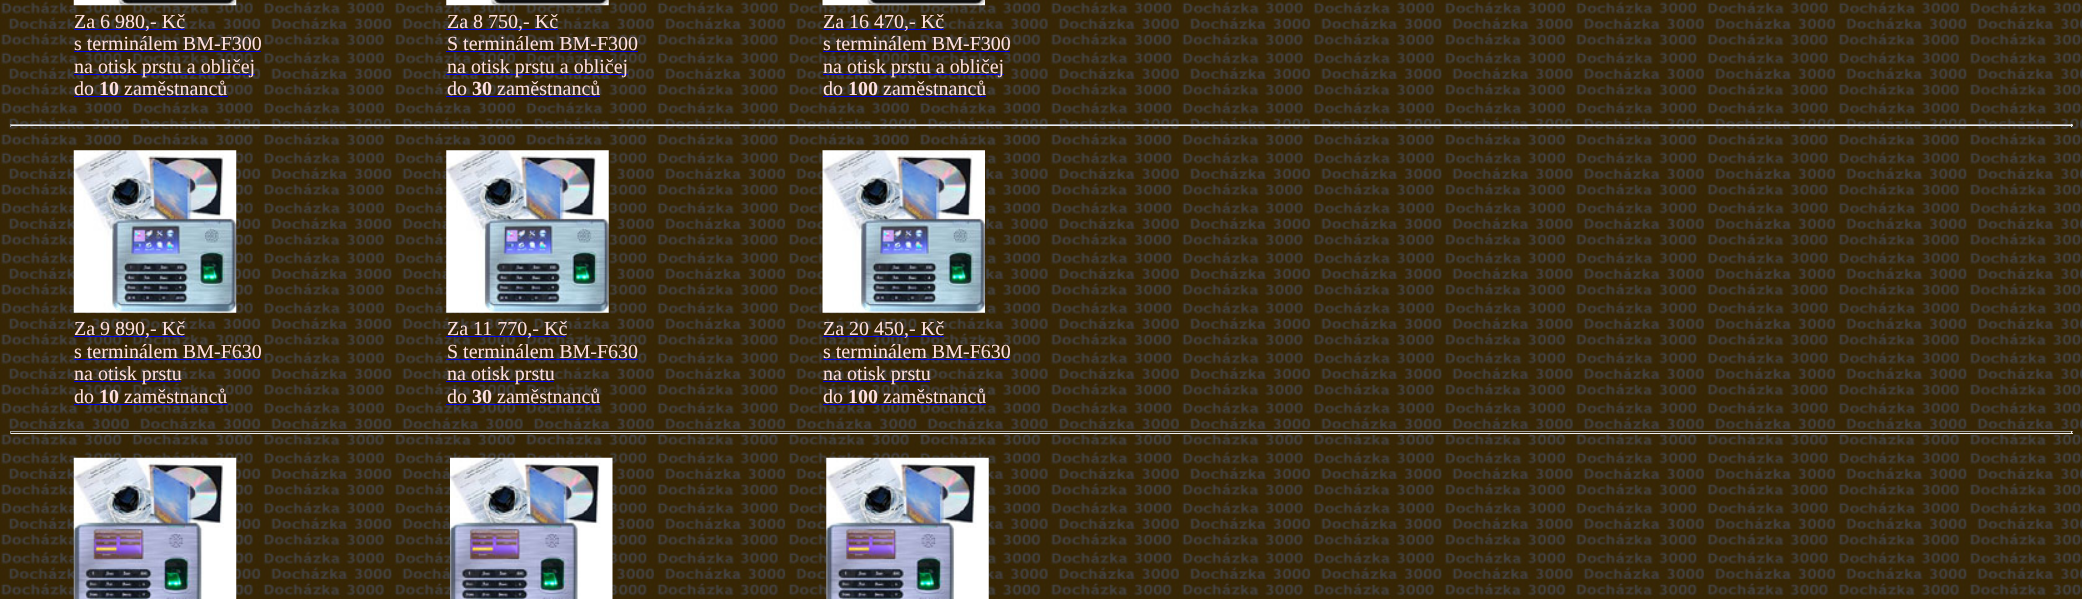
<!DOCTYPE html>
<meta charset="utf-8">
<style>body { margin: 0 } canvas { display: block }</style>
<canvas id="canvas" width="2082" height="599"></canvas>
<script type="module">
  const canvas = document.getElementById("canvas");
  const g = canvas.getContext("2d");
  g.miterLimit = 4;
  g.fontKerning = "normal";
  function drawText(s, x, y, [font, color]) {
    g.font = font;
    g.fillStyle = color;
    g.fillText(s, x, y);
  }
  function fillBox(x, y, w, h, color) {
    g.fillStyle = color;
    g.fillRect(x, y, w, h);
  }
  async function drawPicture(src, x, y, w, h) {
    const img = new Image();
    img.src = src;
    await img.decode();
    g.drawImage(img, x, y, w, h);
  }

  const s1 = ["20px Liberation Serif", "#FFE0E0"];
  const s2 = ["bold 20px Liberation Serif", "#FFE0E0"];

  fillBox(0, 0, 2082, 599, "#FFFFFF");
  await drawPicture("pic1.png", 0, 0, 2082, 599);
  await drawPicture("pic2.png", 73, 0, 164, 6);
  await drawPicture("pic3.png", 446, 0, 163, 6);
  await drawPicture("pic4.png", 822, 0, 163, 6);
  fillBox(74, 29, 111, 1, "#0000EE");
  drawText("Za 6 980,- Kč", 74, 28, s1);
  drawText("s terminálem BM-F300", 74, 50, s1);
  fillBox(74, 51, 187, 1, "#0000EE");
  fillBox(74, 74, 181, 1, "#0000EE");
  drawText("na otisk prstu a obličej", 74, 73, s1);
  drawText("do", 74, 95, s1);
  fillBox(74, 96, 154, 1, "#0000EE");
  drawText("10", 99, 95, s2);
  drawText("zaměstnanců", 124, 95, s1);
  fillBox(446, 29, 112, 1, "#0000EE");
  drawText("Za 8 750,- Kč", 447, 28, s1);
  drawText("S terminálem BM-F300", 447, 50, s1);
  fillBox(446, 51, 192, 1, "#0000EE");
  fillBox(446, 74, 182, 1, "#0000EE");
  drawText("na otisk prstu a obličej", 447, 73, s1);
  drawText("do", 447, 95, s1);
  fillBox(446, 96, 154, 1, "#0000EE");
  drawText("30", 472, 95, s2);
  drawText("zaměstnanců", 497, 95, s1);
  fillBox(823, 29, 121, 1, "#0000EE");
  drawText("Za 16 470,- Kč", 823, 28, s1);
  drawText("s terminálem BM-F300", 823, 50, s1);
  fillBox(823, 51, 187, 1, "#0000EE");
  fillBox(823, 74, 181, 1, "#0000EE");
  drawText("na otisk prstu a obličej", 823, 73, s1);
  drawText("do", 823, 95, s1);
  fillBox(823, 96, 163, 1, "#0000EE");
  drawText("100", 848, 95, s2);
  drawText("zaměstnanců", 883, 95, s1);
  fillBox(10, 124, 2063, 1, "#9F9F9F");
  fillBox(2071, 124, 1, 3, "#EEEEEE");
  fillBox(10, 125, 2063, 1, "#EEEEEE");
  fillBox(10, 124, 1, 3, "#9F9F9F");
  await drawPicture("pic5.png", 73, 150, 164, 163);
  await drawPicture("pic6.png", 446, 150, 163, 163);
  await drawPicture("pic7.png", 822, 150, 163, 163);
  fillBox(74, 336, 111, 1, "#0000EE");
  drawText("Za 9 890,- Kč", 74, 335, s1);
  drawText("s terminálem BM-F630", 74, 358, s1);
  fillBox(74, 359, 187, 1, "#0000EE");
  fillBox(74, 381, 107, 1, "#0000EE");
  drawText("na otisk prstu", 74, 380, s1);
  drawText("do", 74, 403, s1);
  fillBox(74, 404, 154, 1, "#0000EE");
  drawText("10", 99, 403, s2);
  drawText("zaměstnanců", 124, 403, s1);
  fillBox(446, 336, 120, 1, "#0000EE");
  drawText("Za 11 770,- Kč", 447, 335, s1);
  drawText("S terminálem BM-F630", 447, 358, s1);
  fillBox(446, 359, 192, 1, "#0000EE");
  fillBox(446, 381, 108, 1, "#0000EE");
  drawText("na otisk prstu", 447, 380, s1);
  drawText("do", 447, 403, s1);
  fillBox(446, 404, 154, 1, "#0000EE");
  drawText("30", 472, 403, s2);
  drawText("zaměstnanců", 497, 403, s1);
  fillBox(823, 336, 121, 1, "#0000EE");
  drawText("Za 20 450,- Kč", 823, 335, s1);
  drawText("s terminálem BM-F630", 823, 358, s1);
  fillBox(823, 359, 187, 1, "#0000EE");
  fillBox(823, 381, 107, 1, "#0000EE");
  drawText("na otisk prstu", 823, 380, s1);
  drawText("do", 823, 403, s1);
  fillBox(823, 404, 163, 1, "#0000EE");
  drawText("100", 848, 403, s2);
  drawText("zaměstnanců", 883, 403, s1);
  fillBox(10, 431, 2063, 1, "#9F9F9F");
  fillBox(2071, 431, 1, 3, "#EEEEEE");
  fillBox(10, 433, 2063, 1, "#EEEEEE");
  fillBox(10, 431, 1, 3, "#9F9F9F");
  await drawPicture("pic8.png", 73, 457, 164, 142);
  await drawPicture("pic9.png", 450, 457, 163, 142);
  await drawPicture("pic10.png", 826, 457, 163, 142);
</script>
